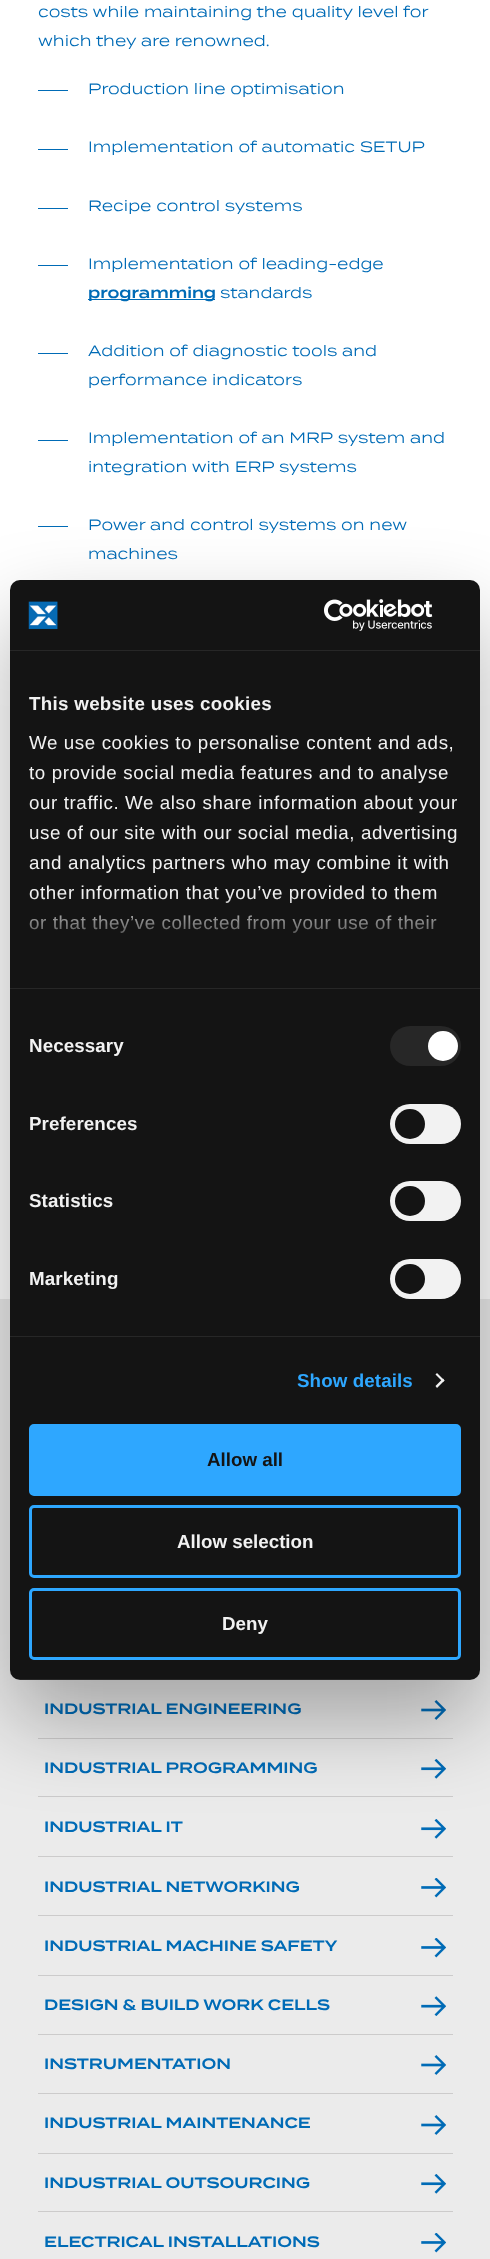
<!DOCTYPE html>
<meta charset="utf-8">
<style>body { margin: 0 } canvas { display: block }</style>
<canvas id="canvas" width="490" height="2259"></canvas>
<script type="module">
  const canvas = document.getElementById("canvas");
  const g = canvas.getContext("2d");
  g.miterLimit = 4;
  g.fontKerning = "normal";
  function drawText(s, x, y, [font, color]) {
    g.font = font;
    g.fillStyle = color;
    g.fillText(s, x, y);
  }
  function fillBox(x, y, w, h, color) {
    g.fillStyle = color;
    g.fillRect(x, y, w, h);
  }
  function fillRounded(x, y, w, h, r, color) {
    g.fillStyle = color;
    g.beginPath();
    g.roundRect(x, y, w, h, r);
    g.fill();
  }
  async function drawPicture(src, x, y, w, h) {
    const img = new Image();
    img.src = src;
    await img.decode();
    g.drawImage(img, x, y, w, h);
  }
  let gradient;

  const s1 = ["15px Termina", "#006BB6"];
  const s2 = ["600 15px Termina", "#006BB6"];
  const s3 = ["bold 18.75px Liberation Sans", "#F2F2F2"];
  const s4 = ["18.75px Liberation Sans", "#F2F2F2"];
  const s5 = ["bold 18.75px Liberation Sans", "#2EA7FF"];
  const s6 = ["bold 18.75px Liberation Sans", "#141414"];

  fillBox(0, 0, 490, 2259, "#FFFFFF");
  drawText("costs while maintaining the quality level for", 38, 17, s1);
  drawText("which they are renowned.", 38, 46, s1);
  fillBox(38, 90, 30, 1, "#006BB6");
  drawText("Production line optimisation", 88, 94, s1);
  fillBox(38, 149, 30, 1, "#006BB6");
  drawText("Implementation of automatic SETUP", 88, 152, s1);
  fillBox(38, 208, 30, 1, "#006BB6");
  drawText("Recipe control systems", 88, 211, s1);
  fillBox(38, 265, 30, 1, "#006BB6");
  drawText("Implementation of leading-edge", 88, 269, s1);
  fillBox(88, 299, 127, 1, "#006BB6");
  drawText("programming", 88, 298, s2);
  drawText("standards", 220, 298, s1);
  fillBox(38, 353, 30, 1, "#006BB6");
  drawText("Addition of diagnostic tools and", 88, 356, s1);
  drawText("performance indicators", 88, 385, s1);
  fillBox(38, 440, 30, 1, "#006BB6");
  drawText("Implementation of an MRP system and", 88, 443, s1);
  drawText("integration with ERP systems", 88, 472, s1);
  fillBox(38, 526, 30, 1, "#006BB6");
  drawText("Power and control systems on new", 88, 530, s1);
  drawText("machines", 88, 559, s1);
  fillBox(0, 1299, 490, 960, "#EBEBEB");
  drawText("INDUSTRIAL ENGINEERING", 44, 1714, s2);
  await drawPicture("pic1.png", 421, 1700, 25, 20);
  fillBox(38, 1738, 415, 1, "#CCCBCB");
  drawText("INDUSTRIAL PROGRAMMING", 44, 1773, s2);
  await drawPicture("pic2.png", 421, 1759, 25, 20);
  fillBox(38, 1796, 415, 1, "#CCCBCB");
  drawText("INDUSTRIAL IT", 44, 1832, s2);
  await drawPicture("pic2.png", 421, 1819, 25, 20);
  fillBox(38, 1856, 415, 1, "#CCCBCB");
  drawText("INDUSTRIAL NETWORKING", 44, 1892, s2);
  await drawPicture("pic3.png", 421, 1878, 25, 20);
  fillBox(38, 1915, 415, 1, "#CCCBCB");
  drawText("INDUSTRIAL MACHINE SAFETY", 44, 1951, s2);
  await drawPicture("pic3.png", 421, 1938, 25, 20);
  fillBox(38, 1975, 415, 1, "#CCCBCB");
  drawText("DESIGN & BUILD WORK CELLS", 44, 2010, s2);
  await drawPicture("pic4.png", 421, 1996, 25, 20);
  fillBox(38, 2034, 415, 1, "#CCCBCB");
  drawText("INSTRUMENTATION", 44, 2069, s2);
  await drawPicture("pic1.png", 421, 2055, 25, 20);
  fillBox(38, 2093, 415, 1, "#CCCBCB");
  drawText("INDUSTRIAL MAINTENANCE", 44, 2128, s2);
  await drawPicture("pic1.png", 421, 2115, 25, 20);
  fillBox(38, 2153, 415, 1, "#CCCBCB");
  drawText("INDUSTRIAL OUTSOURCING", 44, 2188, s2);
  await drawPicture("pic2.png", 421, 2174, 25, 20);
  fillBox(38, 2211, 415, 1, "#CCCBCB");
  drawText("ELECTRICAL INSTALLATIONS", 44, 2247, s2);
  await drawPicture("pic3.png", 421, 2233, 25, 20);
  g.fillStyle = "rgba(0, 0, 0, 0.3)";
  g.filter = "blur(42.5px)";
  g.beginPath();
  g.roundRect(10, 620, 470, 1100, 10);
  g.fill();
  g.filter = "none";
  fillRounded(10, 580, 470, 1100, 10, "#141414");
  fillBox(10, 650, 470, 1, "#272727");
  await drawPicture("pic5.png", 28, 601, 30, 29);
  await drawPicture("pic6.png", 324, 599, 109, 32);
  fillBox(10, 988, 470, 1, "#272727");
  g.letterSpacing = "0.3px";
  drawText("This website uses cookies", 29, 710, s3);
  g.letterSpacing = "0.6px";
  drawText("We use cookies to personalise content and ads,", 29, 749, s4);
  drawText("to provide social media features and to analyse", 29, 779, s4);
  drawText("our traffic. We also share information about your", 29, 809, s4);
  drawText("use of our site with our social media, advertising", 29, 839, s4);
  drawText("and analytics partners who may combine it with", 29, 869, s4);
  drawText("other information that you’ve provided to them", 29, 899, s4);
  drawText("or that they’ve collected from your use of their", 29, 929, s4);
  gradient = g.createLinearGradient(237, 988, 237, 894);
  gradient.addColorStop(0, "#141414");
  gradient.addColorStop(0.5, "rgba(20, 20, 20, 0.8)");
  gradient.addColorStop(1, "rgba(20, 20, 20, 0)");
  g.fillStyle = gradient;
  g.fillRect(29, 895, 409, 38);
  fillBox(10, 1336, 470, 1, "#272727");
  g.letterSpacing = "0.1px";
  drawText("Necessary", 29, 1052, s3);
  fillRounded(390, 1026, 71, 40, 20, "#272727");
  g.fillStyle = "#FFFFFF";
  g.beginPath();
  g.arc(443, 1046, 15, 0, Math.PI * 2);
  g.fill();
  drawText("Preferences", 29, 1130, s3);
  fillRounded(390, 1104, 71, 40, 20, "#F2F2F2");
  g.fillStyle = "#141414";
  g.beginPath();
  g.arc(410, 1124, 15, 0, Math.PI * 2);
  g.fill();
  drawText("Statistics", 29, 1207, s3);
  fillRounded(390, 1181, 71, 40, 20, "#F2F2F2");
  g.fillStyle = "#141414";
  g.beginPath();
  g.arc(410, 1201, 15, 0, Math.PI * 2);
  g.fill();
  drawText("Marketing", 29, 1285, s3);
  fillRounded(390, 1259, 71, 40, 20, "#F2F2F2");
  g.fillStyle = "#141414";
  g.beginPath();
  g.arc(410, 1279, 15, 0, Math.PI * 2);
  g.fill();
  drawText("Show details", 297, 1387, s5);
  g.fillStyle = "#F2F2F2";
  g.beginPath();
  g.moveTo(437, 1373);
  g.lineTo(444.5, 1380.5);
  g.lineTo(443, 1382);
  g.lineTo(435.5, 1374.5);
  g.closePath();
  g.fill();
  g.beginPath();
  g.moveTo(443, 1378.5);
  g.lineTo(444.5, 1380.5);
  g.lineTo(437, 1388);
  g.lineTo(435.5, 1386);
  g.closePath();
  g.fill();
  g.save();
  g.beginPath();
  g.roundRect(10, 580, 470, 1100, 10);
  g.clip();
  fillBox(10, 1679, 470, 1, "rgba(255, 255, 255, 0.08)");
  g.restore();
  g.fillStyle = "#2EA7FF";
  g.beginPath();
  g.roundRect(30.5, 1425.5, 429, 69, 3.5);
  g.fill();
  g.strokeStyle = "#2EA7FF";
  g.lineWidth = 3;
  g.stroke();
  g.letterSpacing = "0px";
  drawText("Allow all", 207, 1466, s6);
  g.beginPath();
  g.roundRect(30.5, 1506.5, 429, 70, 3.5);
  g.stroke();
  drawText("Allow selection", 177, 1548, s3);
  g.beginPath();
  g.roundRect(30.5, 1589.5, 429, 69, 3.5);
  g.stroke();
  drawText("Deny", 222, 1630, s3);
</script>
